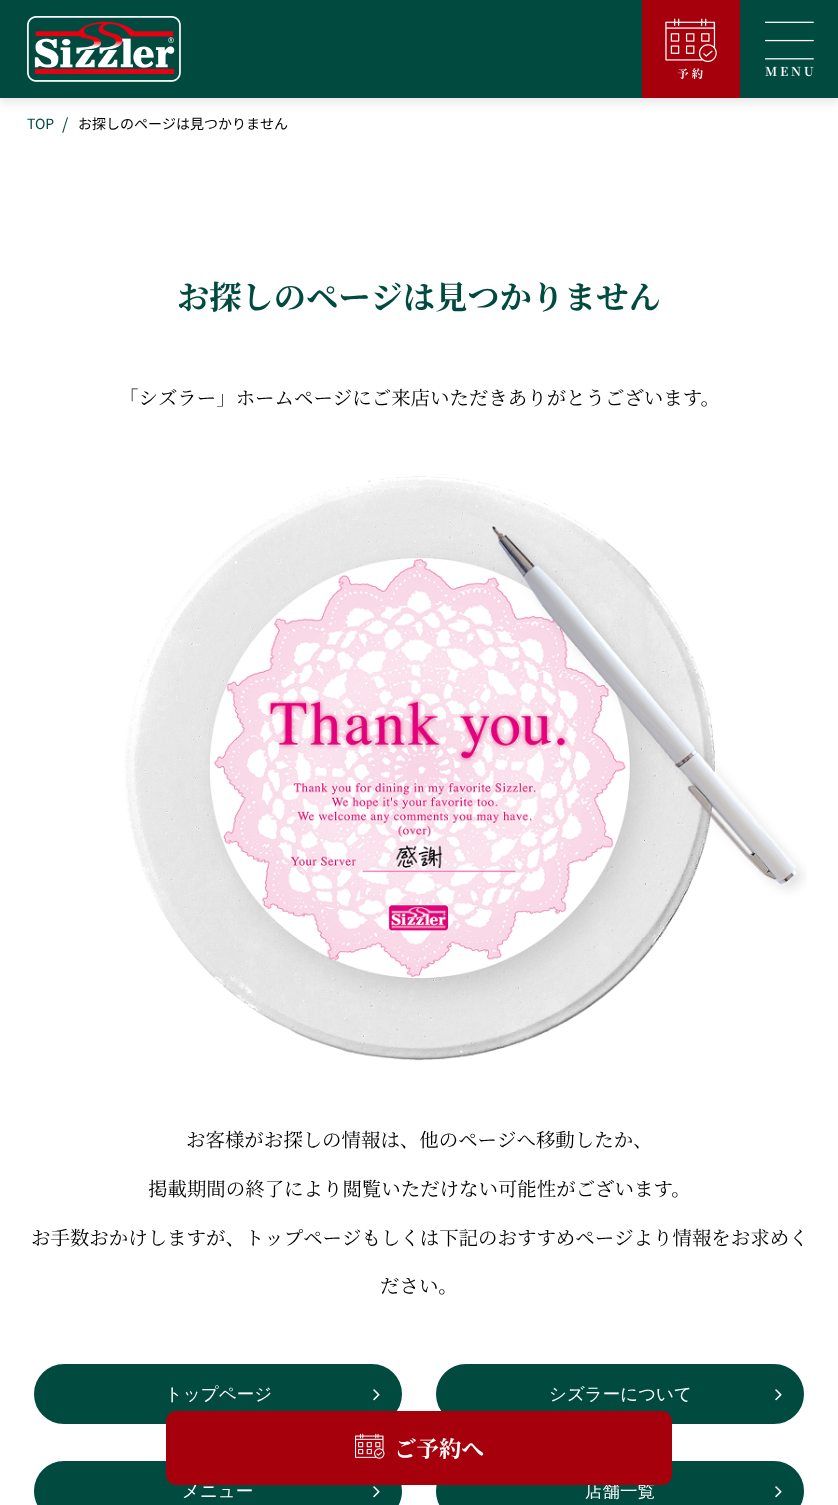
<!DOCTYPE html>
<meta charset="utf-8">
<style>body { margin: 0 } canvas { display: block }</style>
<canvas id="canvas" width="838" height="1505"></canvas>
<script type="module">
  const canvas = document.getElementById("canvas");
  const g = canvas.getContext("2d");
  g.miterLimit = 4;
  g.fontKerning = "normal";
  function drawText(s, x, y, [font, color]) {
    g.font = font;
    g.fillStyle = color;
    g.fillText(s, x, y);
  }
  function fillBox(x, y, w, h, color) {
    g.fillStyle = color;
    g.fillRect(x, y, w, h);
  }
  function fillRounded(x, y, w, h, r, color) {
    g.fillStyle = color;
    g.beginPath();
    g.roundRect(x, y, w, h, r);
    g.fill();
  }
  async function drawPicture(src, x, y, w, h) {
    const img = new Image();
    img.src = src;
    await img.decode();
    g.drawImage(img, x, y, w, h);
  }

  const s1 = ["14px Noto Sans JP", "#004A3F"];
  const s2 = ["16px Noto Sans JP", "#004A3F"];
  const s3 = ["14px Noto Sans JP", "#000000"];
  const s4 = ["bold 32.25px Noto Serif JP", "#004A3F"];
  const s5 = ["19.45px Noto Serif JP", "#000000"];
  const s6 = ["500 17.5px WenQuanYi Zen Hei", "#FFFFFF"];
  const s7 = ["bold 22.5px Noto Serif JP", "#FFFFFF"];

  fillBox(0, 0, 838, 1505, "#FFFFFF");
  g.fillStyle = "rgba(0, 0, 0, 0.09)";
  g.filter = "blur(5px)";
  g.beginPath();
  g.rect(-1, 3, 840, 100);
  g.fill();
  g.filter = "none";
  fillBox(0, 0, 838, 98, "#004A3F");
  await drawPicture("pic1.png", 27, 16, 154, 66);
  fillBox(642, 0, 98, 98, "#A6000D");
  await drawPicture("pic2.png", 665, 18, 52, 62);
  await drawPicture("pic3.png", 765, 21, 49, 56);
  drawText("TOP", 27, 129, s1);
  drawText("/", 62, 130, s2);
  drawText("お探しのページは見つかりません", 78, 129, s3);
  drawText("お探しのページは見つかりません", 177, 309, s4);
  drawText("「シズラー」ホームページにご来店いただきありがとうございます。", 119, 405, s5);
  await drawPicture("pic4.png", 124, 476, 683, 585);
  drawText("お客様がお探しの情報は、他のページへ移動したか、", 186, 1147, s5);
  drawText("掲載期間の終了により閲覧いただけない可能性がございます。", 148, 1196, s5);
  drawText("お手数おかけしますが、トップページもしくは下記のおすすめページより情報をお求めく", 31, 1245, s5);
  drawText("ださい。", 380, 1293, s5);
  g.fillStyle = "#004A3F";
  g.beginPath();
  g.roundRect(35, 1365, 366, 58, 29);
  g.fill();
  g.strokeStyle = "#004A3F";
  g.lineWidth = 2;
  g.stroke();
  drawText("トップページ", 165, 1400, s6);
  await drawPicture("pic5.png", 373, 1389, 7, 12);
  g.fillStyle = "#004A3F";
  g.beginPath();
  g.roundRect(437, 1365, 366, 58, 29);
  g.fill();
  g.stroke();
  drawText("シズラーについて", 549, 1400, s6);
  await drawPicture("pic5.png", 775, 1389, 7, 12);
  g.fillStyle = "#004A3F";
  g.beginPath();
  g.roundRect(35, 1462, 366, 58, 29);
  g.fill();
  g.stroke();
  drawText("メニュー", 182, 1497, s6);
  await drawPicture("pic5.png", 373, 1486, 7, 12);
  g.fillStyle = "#004A3F";
  g.beginPath();
  g.roundRect(437, 1462, 366, 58, 29);
  g.fill();
  g.stroke();
  drawText("店舗一覧", 585, 1497, s6);
  await drawPicture("pic5.png", 775, 1486, 7, 12);
  fillRounded(166, 1411, 506, 74, 10, "#A6000D");
  await drawPicture("pic6.png", 355, 1433, 30, 26);
  drawText("ご予約へ", 394, 1457, s7);
</script>
